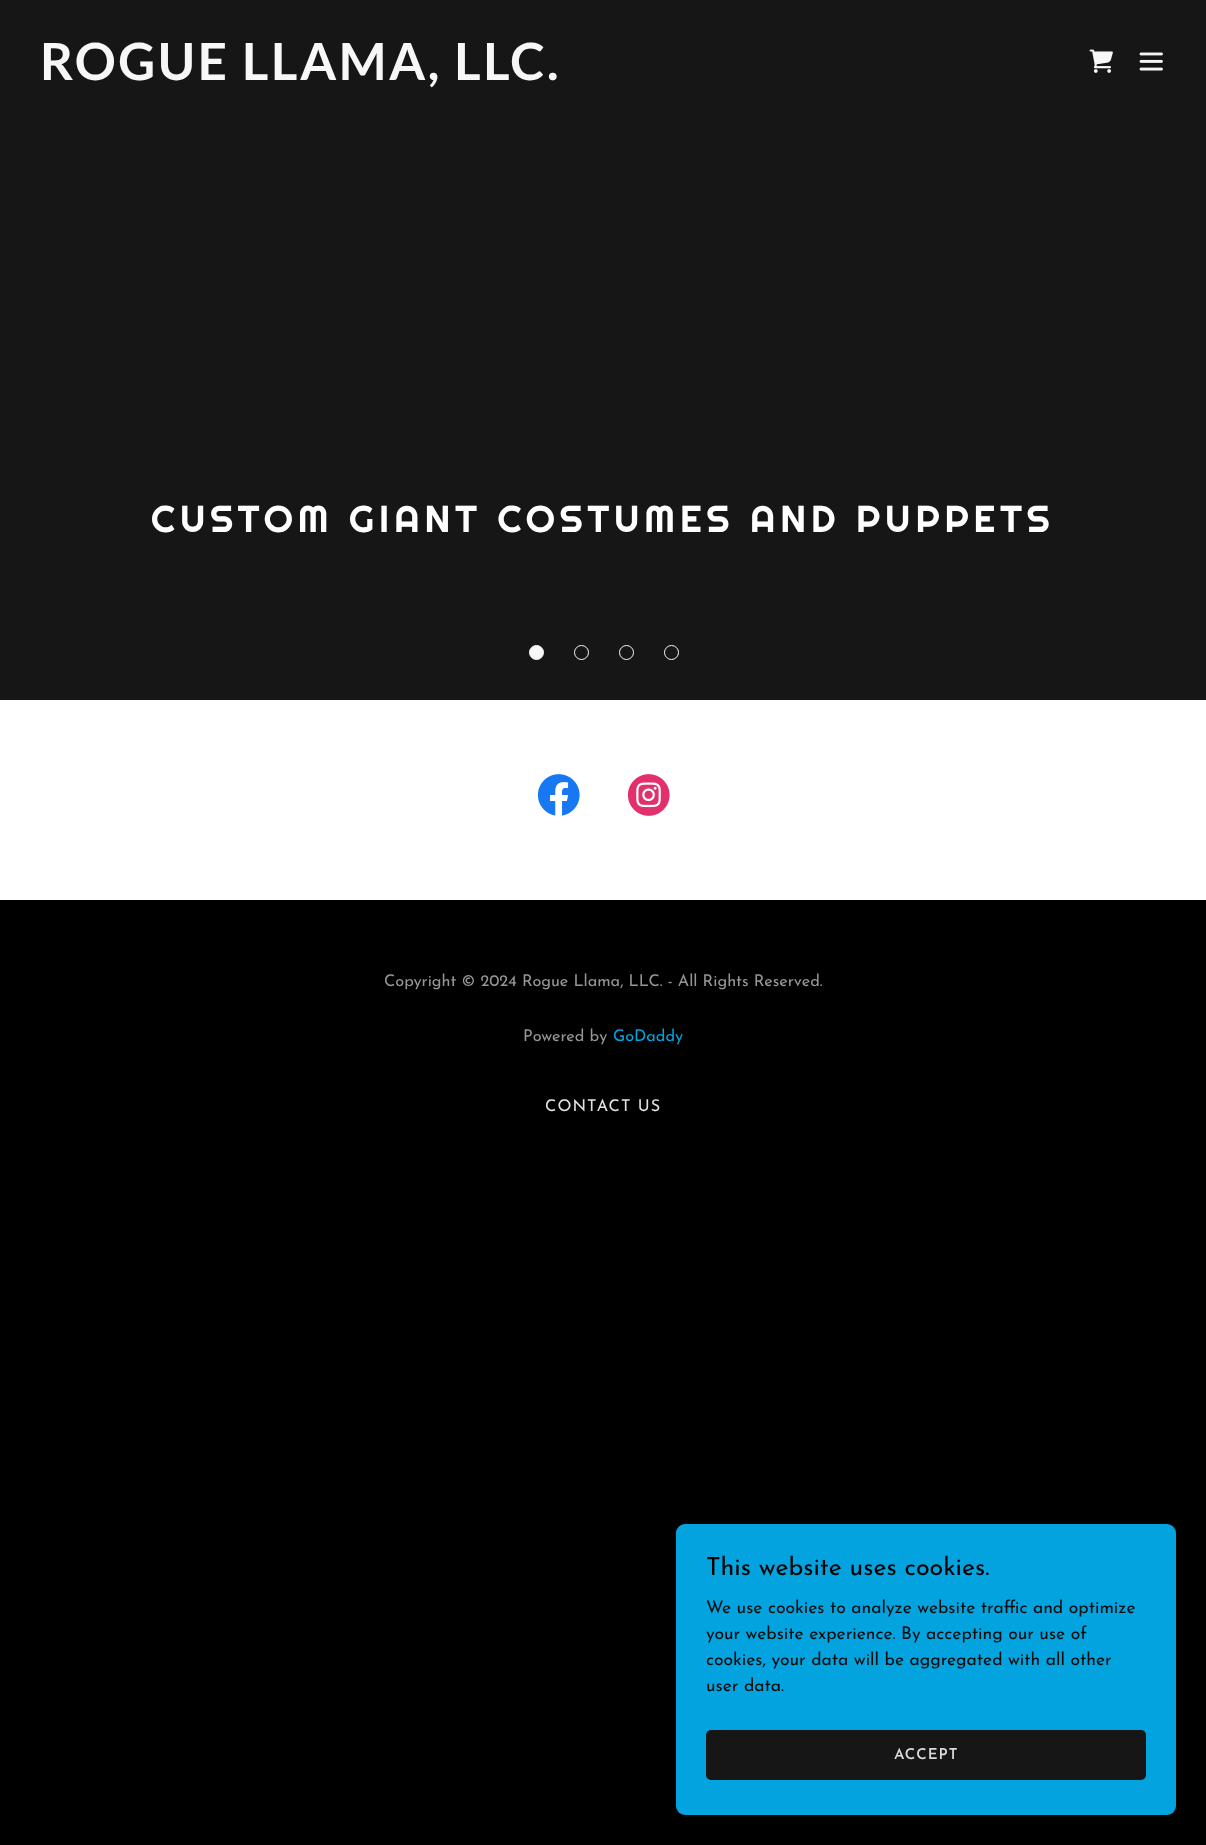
<!DOCTYPE html>
<meta charset="utf-8">
<style>body { margin: 0 } canvas { display: block }</style>
<canvas id="canvas" width="1206" height="1845"></canvas>
<script type="module">
  const canvas = document.getElementById("canvas");
  const g = canvas.getContext("2d");
  g.miterLimit = 4;
  g.fontKerning = "normal";
  function drawText(s, x, y, [font, color]) {
    g.font = font;
    g.fillStyle = color;
    g.fillText(s, x, y);
  }
  function fillBox(x, y, w, h, color) {
    g.fillStyle = color;
    g.fillRect(x, y, w, h);
  }
  function fillRounded(x, y, w, h, r, color) {
    g.fillStyle = color;
    g.beginPath();
    g.roundRect(x, y, w, h, r);
    g.fill();
  }
  async function drawPicture(src, x, y, w, h) {
    const img = new Image();
    img.src = src;
    await img.decode();
    g.drawImage(img, x, y, w, h);
  }

  const s1 = ["bold 51.25px Lato", "#F7F7F7"];
  const s2 = ["37.5px Righteous", "#FFFFFF"];
  const s3 = ["16.25px Josefin Sans", "#969696"];
  const s4 = ["16.25px Josefin Sans", "#02A3DE"];
  const s5 = ["16.25px Josefin Sans", "#E2E2E2"];
  const s6 = ["25px Josefin Sans", "#000000"];
  const s7 = ["17.5px Josefin Sans", "#0A0B0B"];
  const s8 = ["600 15px Josefin Sans", "#DBDBDB"];

  fillBox(0, 0, 1206, 1845, "#000000");
  fillBox(0, 0, 1206, 700, "#161616");
  g.letterSpacing = "2.5px";
  drawText("ROGUE LLAMA, LLC.", 40, 80, s1);
  await drawPicture("pic1.png", 1089, 49, 24, 24);
  await drawPicture("pic2.png", 1139, 52, 24, 19);
  g.letterSpacing = "5px";
  drawText("CUSTOM GIANT COSTUMES AND PUPPETS", 151, 532, s2);
  g.fillStyle = "#F7F7F7";
  g.beginPath();
  g.arc(536.5, 652.5, 7, 0, Math.PI * 2);
  g.fill();
  g.strokeStyle = "#F7F7F7";
  g.stroke();
  g.beginPath();
  g.arc(581.5, 652.5, 7, 0, Math.PI * 2);
  g.stroke();
  g.beginPath();
  g.arc(626.5, 652.5, 7, 0, Math.PI * 2);
  g.stroke();
  g.beginPath();
  g.arc(671.5, 652.5, 7, 0, Math.PI * 2);
  g.stroke();
  fillBox(0, 700, 1206, 200, "#FFFFFF");
  await drawPicture("pic3.png", 537, 774, 43, 42);
  await drawPicture("pic4.png", 627, 774, 43, 42);
  g.letterSpacing = "0px";
  drawText("Copyright © 2024 Rogue Llama, LLC. - All Rights Reserved.", 384, 986, s3);
  drawText("Powered by", 523, 1041, s3);
  drawText("GoDaddy", 613, 1041, s4);
  g.letterSpacing = "1.1px";
  drawText("CONTACT US", 545, 1111, s5);
  fillRounded(676, 1524, 500, 291, 9, "#02A3DE");
  g.letterSpacing = "0px";
  drawText("This website uses cookies.", 706, 1575, s6);
  drawText("We use cookies to analyze website traffic and optimize", 706, 1613, s7);
  drawText("your website experience. By accepting our use of", 706, 1639, s7);
  drawText("cookies, your data will be aggregated with all other", 706, 1665, s7);
  drawText("user data.", 706, 1691, s7);
  fillRounded(706, 1730, 440, 50, 5, "#161616");
  g.letterSpacing = "1px";
  drawText("ACCEPT", 894, 1759, s8);
</script>
